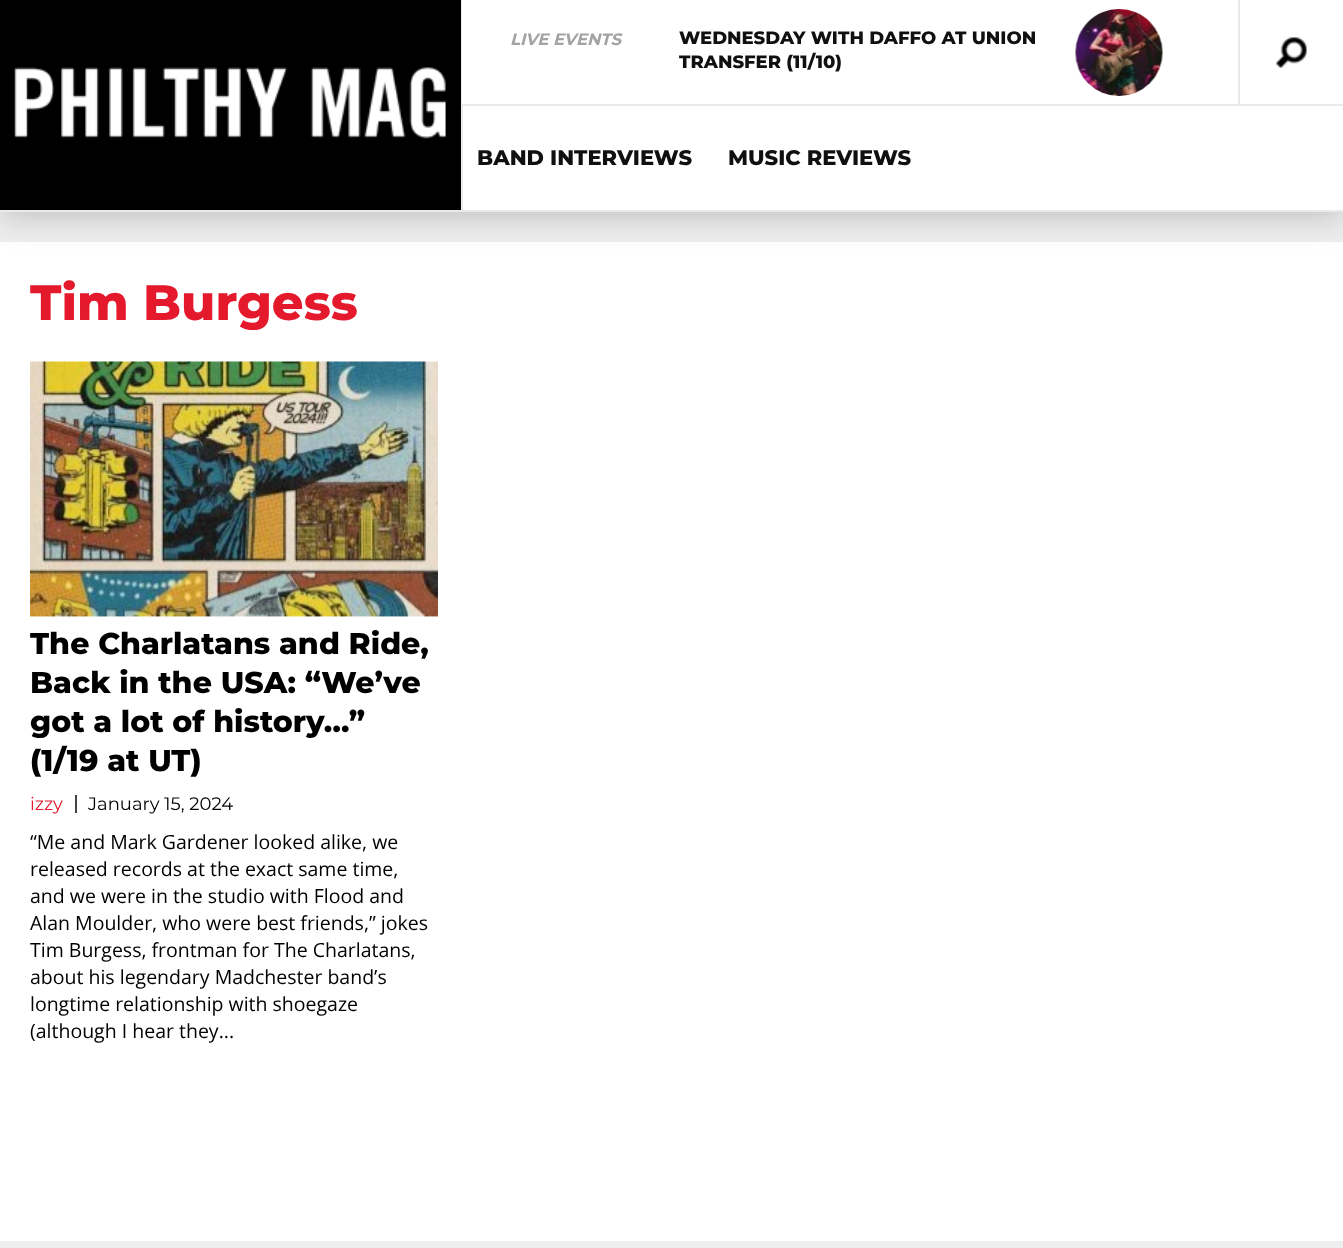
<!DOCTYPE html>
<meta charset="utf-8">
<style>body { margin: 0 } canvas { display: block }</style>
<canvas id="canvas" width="1343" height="1248"></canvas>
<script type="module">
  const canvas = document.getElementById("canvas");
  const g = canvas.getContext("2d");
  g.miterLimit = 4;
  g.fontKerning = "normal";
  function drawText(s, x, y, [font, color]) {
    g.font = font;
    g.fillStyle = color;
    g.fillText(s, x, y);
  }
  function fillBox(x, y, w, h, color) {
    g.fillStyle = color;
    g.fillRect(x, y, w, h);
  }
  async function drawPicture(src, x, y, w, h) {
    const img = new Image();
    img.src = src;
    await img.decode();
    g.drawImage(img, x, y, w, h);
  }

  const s1 = ["italic bold 16.5px Montserrat", "#A3A3A3"];
  const s2 = ["800 18px Montserrat", "#101010"];
  const s3 = ["800 21px Montserrat", "#101010"];
  const s4 = ["800 49.5px Montserrat", "#E5192C"];
  const s5 = ["800 30px Montserrat", "#000000"];
  const s6 = ["18px Montserrat", "#E5192C"];
  const s7 = ["18px Montserrat", "#000000"];
  const s8 = ["19.5px Open Sans", "#000000"];

  fillBox(0, 0, 1343, 1248, "#EEEEEE");
  fillBox(0, 242, 1343, 999, "#FFFFFF");
  g.fillStyle = "rgba(0, 0, 0, 0.25)";
  g.filter = "blur(18px)";
  g.beginPath();
  g.rect(0, 0, 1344, 212);
  g.fill();
  g.filter = "none";
  fillBox(463, 106, 880, 104, "#FFFFFF");
  fillBox(0, 210, 1343, 2, "#EAEAEA");
  fillBox(0, 0, 461, 210, "#000000");
  fillBox(461, 0, 2, 210, "#EAEAEA");
  await drawPicture("pic1.png", 14, 67, 432, 72);
  fillBox(462, 0, 881, 104, "#FFFFFF");
  fillBox(462, 104, 881, 2, "#EAEAEA");
  drawText("LIVE EVENTS", 510, 45, s1);
  drawText("WEDNESDAY WITH DAFFO AT UNION", 679, 44, s2);
  drawText("TRANSFER (11/10)", 679, 68, s2);
  await drawPicture("pic2.png", 1075, 9, 88, 87);
  await drawPicture("pic3.png", 1276, 37, 31, 31);
  fillBox(1238, 0, 2, 104, "#EAEAEA");
  drawText("BAND INTERVIEWS", 477, 165, s3);
  drawText("MUSIC REVIEWS", 728, 165, s3);
  drawText("Tim Burgess", 30, 320, s4);
  await drawPicture("pic4.png", 30, 361, 408, 256);
  drawText("The Charlatans and Ride,", 30, 654, s5);
  drawText("Back in the USA: “We’ve", 30, 693, s5);
  drawText("got a lot of history…”", 30, 732, s5);
  drawText("(1/19 at UT)", 30, 771, s5);
  fillBox(75, 795, 2, 18, "#444444");
  drawText("izzy", 30, 810, s6);
  drawText("January 15, 2024", 88, 810, s7);
  drawText("“Me and Mark Gardener looked alike, we", 30, 849, s8);
  drawText("released records at the exact same time,", 30, 876, s8);
  drawText("and we were in the studio with Flood and", 30, 903, s8);
  drawText("Alan Moulder, who were best friends,” jokes", 30, 930, s8);
  drawText("Tim Burgess, frontman for The Charlatans,", 30, 957, s8);
  drawText("about his legendary Madchester band’s", 30, 984, s8);
  drawText("longtime relationship with shoegaze", 30, 1011, s8);
  drawText("(although I hear they...", 30, 1038, s8);
</script>
